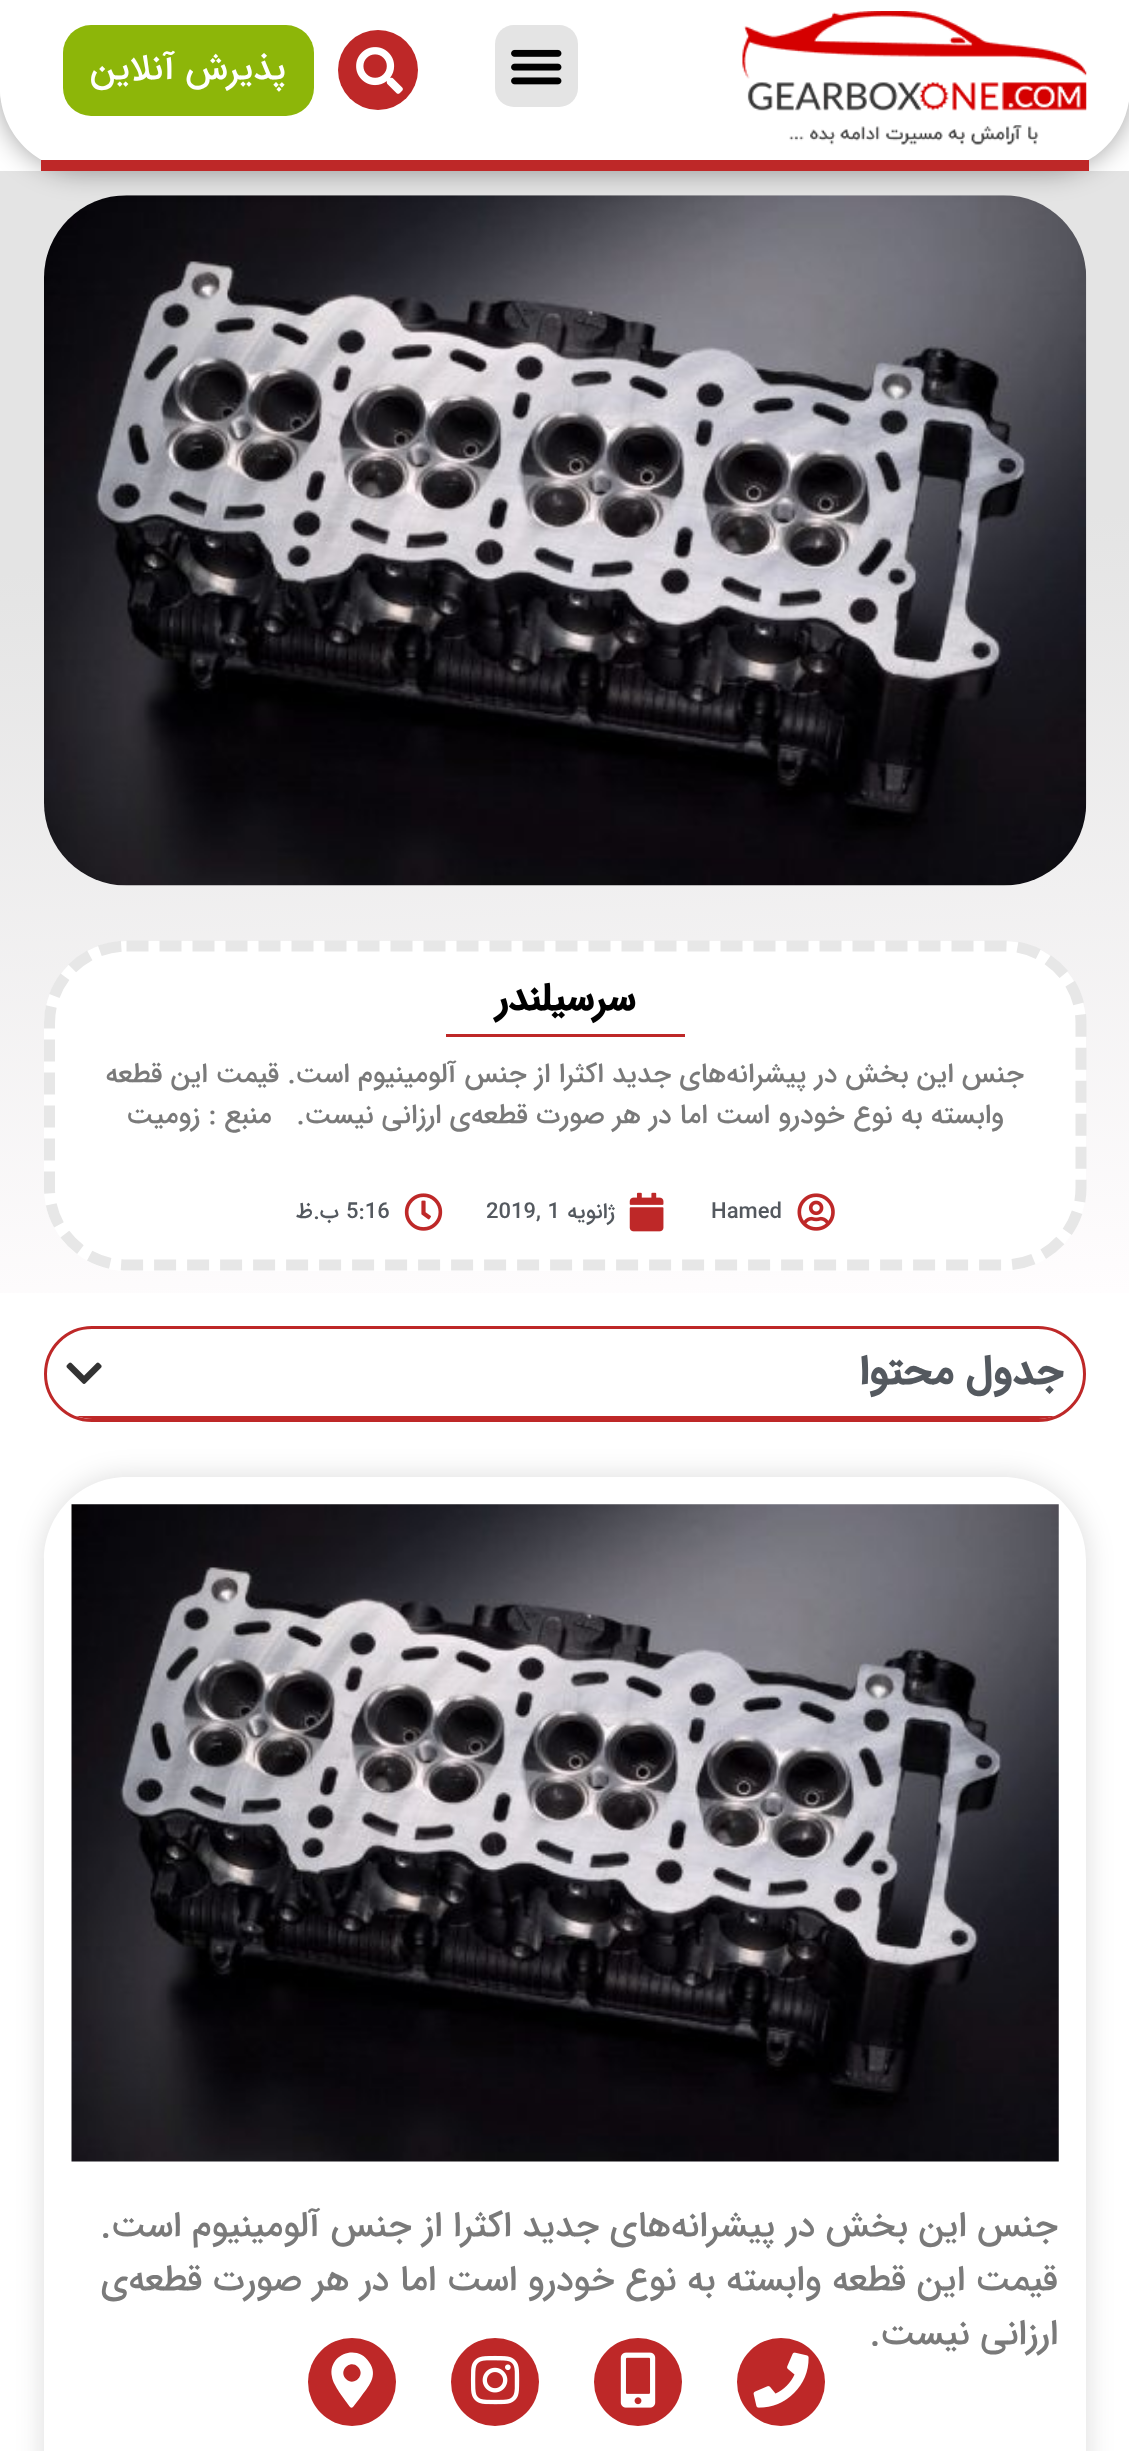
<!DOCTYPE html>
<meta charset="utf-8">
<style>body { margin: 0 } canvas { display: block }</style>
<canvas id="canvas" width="1129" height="2451"></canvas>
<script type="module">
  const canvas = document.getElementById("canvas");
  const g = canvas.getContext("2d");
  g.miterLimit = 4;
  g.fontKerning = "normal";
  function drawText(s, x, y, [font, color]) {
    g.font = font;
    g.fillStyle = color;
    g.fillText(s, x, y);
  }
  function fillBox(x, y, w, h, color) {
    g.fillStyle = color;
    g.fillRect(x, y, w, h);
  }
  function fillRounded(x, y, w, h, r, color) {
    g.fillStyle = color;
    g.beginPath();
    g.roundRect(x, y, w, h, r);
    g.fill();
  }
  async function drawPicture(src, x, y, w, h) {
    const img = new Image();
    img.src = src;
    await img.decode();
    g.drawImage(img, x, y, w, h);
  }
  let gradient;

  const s1 = ["500 35.75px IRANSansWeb", "#FFFFFF"];
  const s2 = ["bold 38.5px IRANSansWeb", "#000000"];
  const s3 = ["500 27.5px IRANSansWeb", "#7A7A7A"];
  const s4 = ["500 22px IRANSansWeb", "#54595F"];
  const s5 = ["bold 41.25px IRANSansWeb", "#54595F"];
  const s6 = ["500 35.75px IRANSansWeb", "#7A7A7A"];

  fillBox(0, 0, 1129, 2451, "#FFFFFF");
  gradient = g.createLinearGradient(534, 143, 596, 1320);
  gradient.addColorStop(0.34, "#E4E4E4");
  gradient.addColorStop(1, "#FFFDFE");
  g.fillStyle = gradient;
  g.fillRect(0, 171, 1129, 1122);
  await drawPicture("pic4.png", 44, 195, 1043, 691);
  g.save();
  g.beginPath();
  g.moveTo(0, 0);
  g.lineTo(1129, 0);
  g.lineTo(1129, 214);
  g.lineTo(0, 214);
  g.closePath();
  g.moveTo(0, 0);
  g.lineTo(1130, 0);
  g.lineTo(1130, 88);
  g.bezierCurveTo(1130, 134, 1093, 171, 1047, 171);
  g.lineTo(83, 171);
  g.bezierCurveTo(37, 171, 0, 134, 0, 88);
  g.closePath();
  g.clip("evenodd");
  g.fillStyle = "rgba(0, 0, 0, 0.38)";
  g.filter = "blur(14px)";
  g.beginPath();
  g.roundRect(0, 0, 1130, 171, 83);
  g.fill();
  g.filter = "none";
  g.restore();
  g.fillStyle = "#FFFFFF";
  g.beginPath();
  g.moveTo(0, 0);
  g.lineTo(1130, 0);
  g.lineTo(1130, 88);
  g.bezierCurveTo(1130, 127, 1093, 160, 1048, 160);
  g.lineTo(82, 160);
  g.bezierCurveTo(37, 160, 0, 127, 0, 88);
  g.closePath();
  g.fill();
  fillBox(41, 160, 1048, 11, "#BE2828");
  await drawPicture("pic1.png", 742, 11, 345, 134);
  fillRounded(495, 25, 83, 82, 19, "#E4E4E4");
  await drawPicture("pic2.png", 511, 49, 51, 36);
  g.fillStyle = "#BE2828";
  g.beginPath();
  g.arc(378, 70, 40, 0, Math.PI * 2);
  g.fill();
  await drawPicture("pic3.png", 356, 47, 47, 47);
  fillRounded(63, 25, 251, 91, 28, "#8DB609");
  g.direction = "rtl";
  drawText("پذیرش آنلاین", 286, 79, s1);
  fillRounded(44, 941, 1042, 330, 83, "#FFFFFF");
  g.beginPath();
  g.moveTo(126.5, 946);
  g.lineTo(1004, 946);
  g.bezierCurveTo(1046.5, 946, 1081, 980.5, 1081, 1023);
  g.lineTo(1081, 1188);
  g.bezierCurveTo(1081, 1230.5, 1046.5, 1265, 1004, 1265);
  g.lineTo(126.5, 1265);
  g.bezierCurveTo(84, 1265, 49.5, 1230.5, 49.5, 1188);
  g.lineTo(49.5, 1023);
  g.bezierCurveTo(49.5, 980.5, 84, 946, 126.5, 946);
  g.closePath();
  g.strokeStyle = "#E7E7E7";
  g.lineWidth = 11;
  g.setLineDash([22, 11]);
  g.stroke();
  drawText("سرسیلندر", 635, 1010, s2);
  fillBox(446, 1034, 239, 3, "#BE2828");
  drawText("جنس این بخش در پیشرانه‌های جدید اکثرا از جنس آلومینیوم است. قیمت این قطعه", 1024, 1082, s3);
  drawText("وابسته به نوع خودرو است اما در هر صورت قطعه‌ی ارزانی نیست.   منبع : زومیت", 1004, 1123, s3);
  await drawPicture("pic5.png", 797, 1193, 38, 38);
  g.direction = "ltr";
  drawText("Hamed", 711, 1218, s4);
  await drawPicture("pic6.png", 629, 1192, 35, 40);
  g.direction = "rtl";
  drawText("ژانویه", 615, 1218, s4);
  g.direction = "ltr";
  drawText("2019, 1", 486, 1218, s4);
  await drawPicture("pic7.png", 404, 1193, 39, 38);
  drawText("5:16", 346, 1218, s4);
  g.direction = "rtl";
  drawText("ب.ظ", 339, 1218, s4);
  g.beginPath();
  g.roundRect(45.5, 1327.5, 1039, 93, 46.5);
  g.strokeStyle = "#BE2828";
  g.lineWidth = 3;
  g.setLineDash([]);
  g.stroke();
  g.save();
  g.beginPath();
  g.roundRect(47, 1328, 1037, 91, 45.5);
  g.clip();
  fillBox(76, 1416, 979, 3, "#BE2828");
  g.restore();
  drawText("جدول محتوا", 1063, 1384, s5);
  await drawPicture("pic8.png", 66, 1362, 36, 22);
  g.save();
  g.beginPath();
  g.moveTo(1, 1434);
  g.lineTo(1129, 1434);
  g.lineTo(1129, 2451);
  g.lineTo(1, 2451);
  g.closePath();
  g.moveTo(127, 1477);
  g.lineTo(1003, 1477);
  g.bezierCurveTo(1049, 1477, 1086, 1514, 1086, 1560);
  g.lineTo(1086, 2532);
  g.bezierCurveTo(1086, 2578, 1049, 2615, 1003, 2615);
  g.lineTo(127, 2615);
  g.bezierCurveTo(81, 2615, 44, 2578, 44, 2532);
  g.lineTo(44, 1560);
  g.bezierCurveTo(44, 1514, 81, 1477, 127, 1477);
  g.closePath();
  g.clip("evenodd");
  g.fillStyle = "rgba(0, 0, 0, 0.14)";
  g.filter = "blur(14px)";
  g.beginPath();
  g.roundRect(44, 1477, 1042, 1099, 83);
  g.fill();
  g.filter = "none";
  g.restore();
  await drawPicture("pic9.png", 71, 1504, 988, 658);
  drawText("جنس این بخش در پیشرانه‌های جدید اکثرا از جنس آلومینیوم است.", 1058, 2236, s6);
  drawText("قیمت این قطعه وابسته به نوع خودرو است اما در هر صورت قطعه‌ی", 1058, 2290, s6);
  drawText("ارزانی نیست.", 1058, 2344, s6);
  g.fillStyle = "#BE2828";
  g.beginPath();
  g.arc(781, 2382, 44, 0, Math.PI * 2);
  g.fill();
  await drawPicture("pic10.png", 753, 2352, 56, 56);
  g.beginPath();
  g.arc(638, 2382, 44, 0, Math.PI * 2);
  g.fill();
  await drawPicture("pic11.png", 620, 2352, 36, 56);
  g.beginPath();
  g.arc(495, 2382, 44, 0, Math.PI * 2);
  g.fill();
  await drawPicture("pic12.png", 470, 2355, 50, 50);
  g.beginPath();
  g.arc(352, 2382, 44, 0, Math.PI * 2);
  g.fill();
  g.fillStyle = "#FFFFFF";
  g.beginPath();
  g.moveTo(350, 2407);
  g.bezierCurveTo(345, 2400, 333, 2385, 332, 2377);
  g.bezierCurveTo(327, 2355, 357, 2343, 369, 2362);
  g.bezierCurveTo(379, 2376, 368, 2387, 360, 2398);
  g.lineTo(353, 2407);
  g.bezierCurveTo(352, 2408, 351, 2408, 350, 2407);
  g.closePath();
  g.moveTo(346, 2379);
  g.bezierCurveTo(354, 2387, 366, 2375, 358, 2367);
  g.bezierCurveTo(350, 2359, 338, 2371, 346, 2379);
  g.closePath();
  g.fill();
</script>
